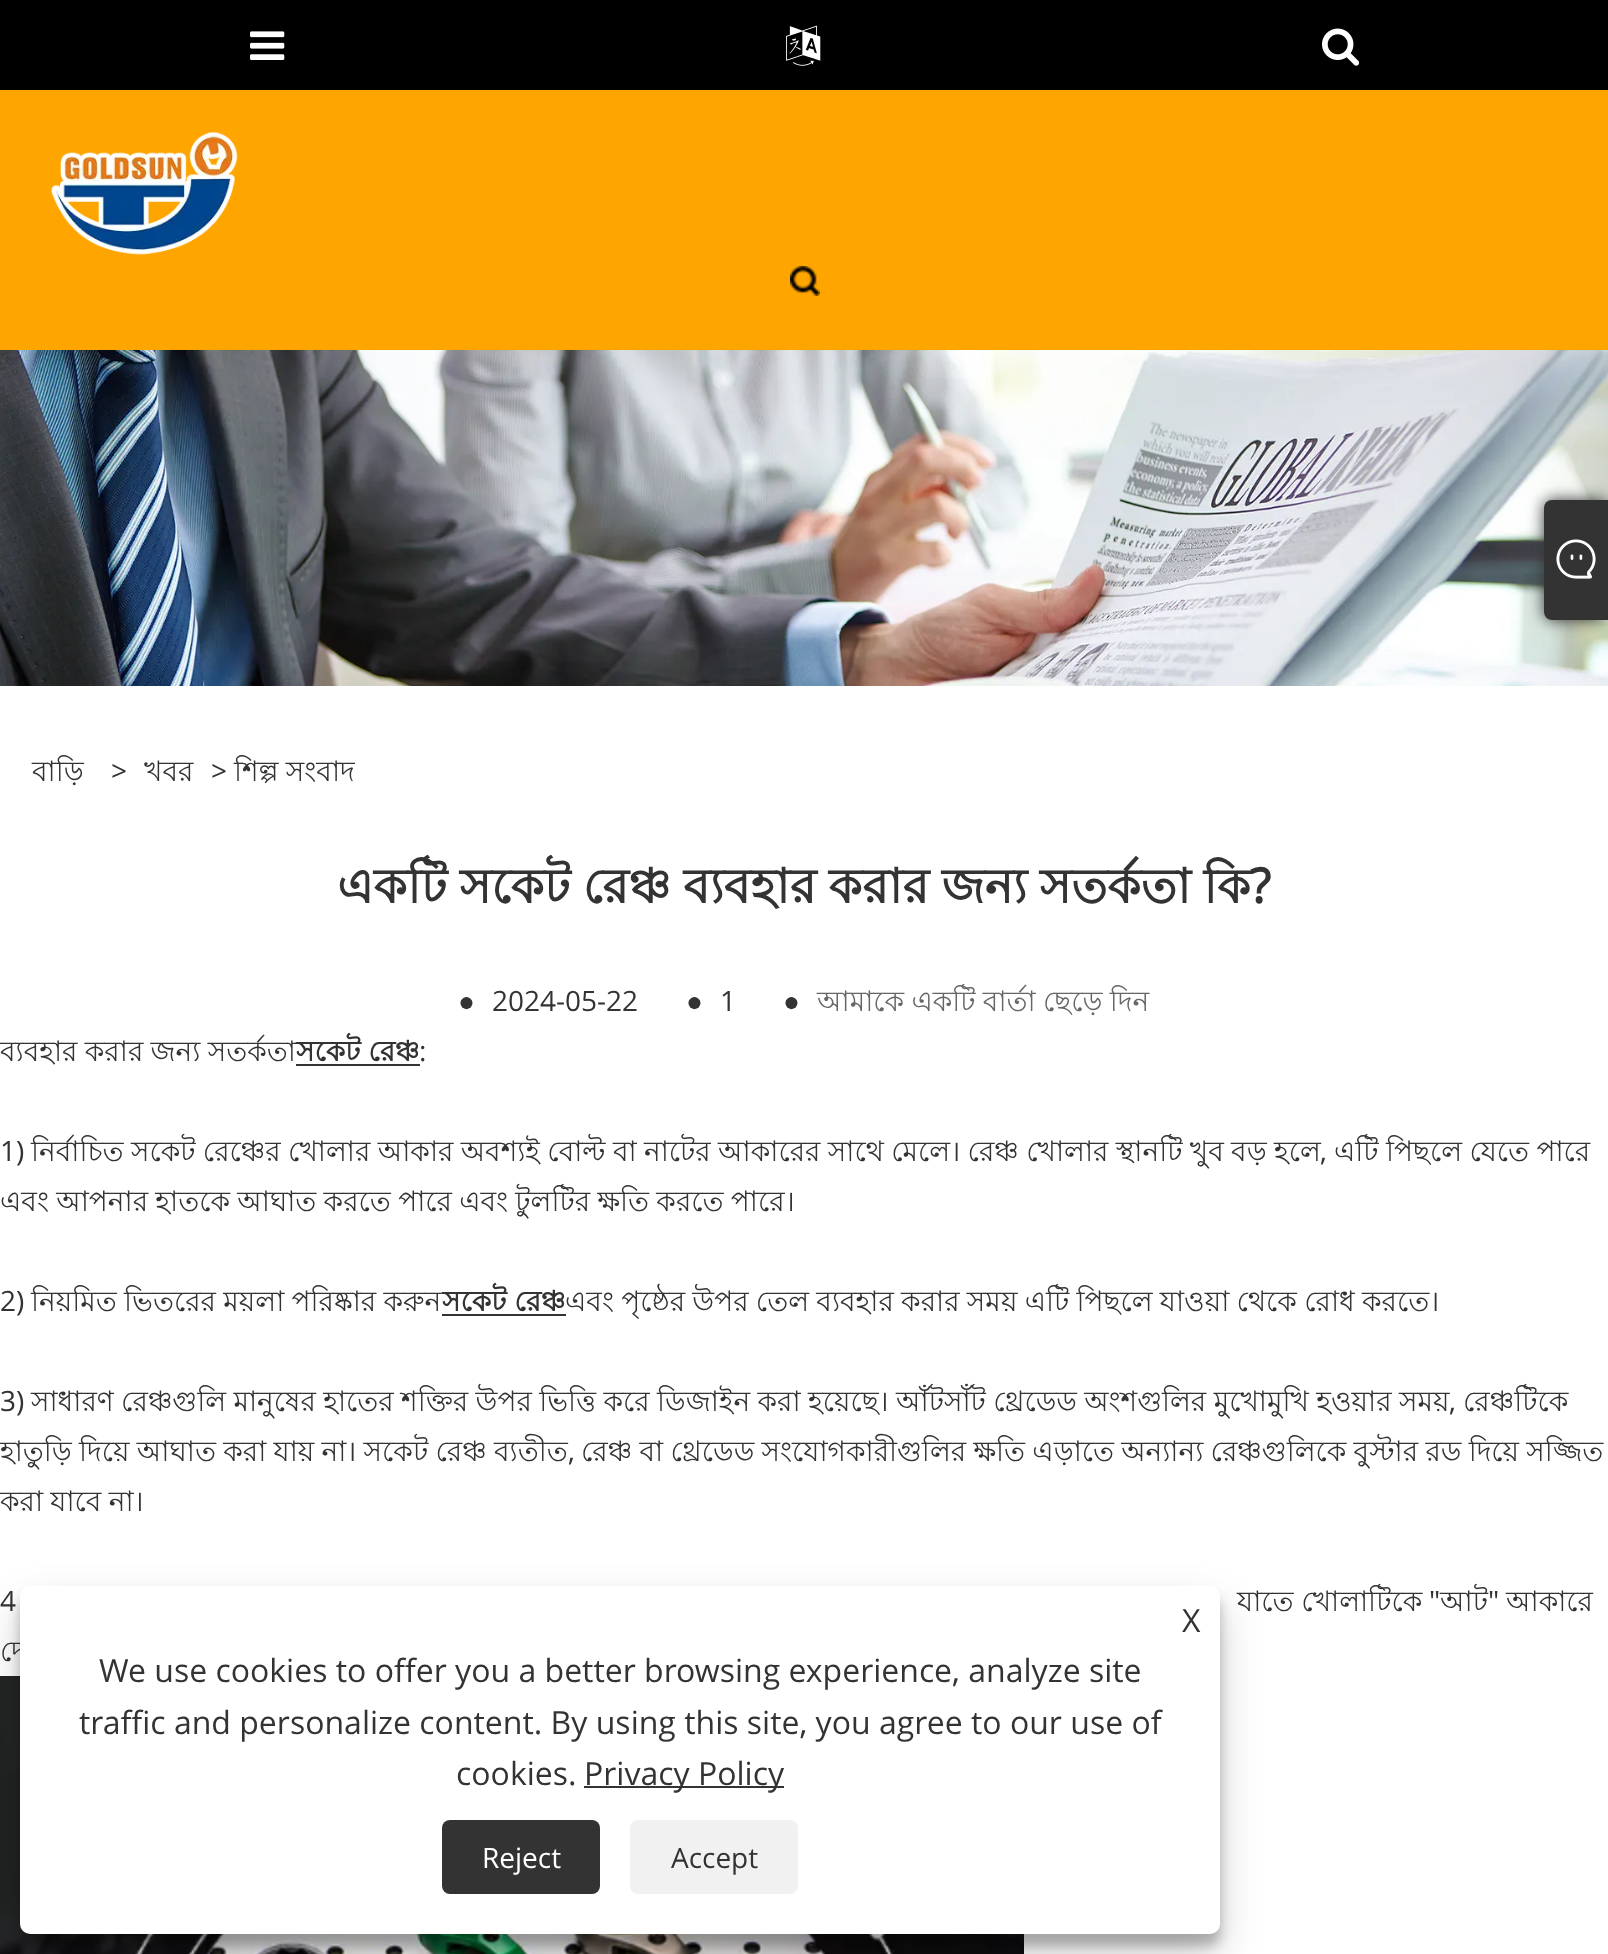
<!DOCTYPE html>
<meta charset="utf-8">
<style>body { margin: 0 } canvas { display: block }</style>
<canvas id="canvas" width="1608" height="1954"></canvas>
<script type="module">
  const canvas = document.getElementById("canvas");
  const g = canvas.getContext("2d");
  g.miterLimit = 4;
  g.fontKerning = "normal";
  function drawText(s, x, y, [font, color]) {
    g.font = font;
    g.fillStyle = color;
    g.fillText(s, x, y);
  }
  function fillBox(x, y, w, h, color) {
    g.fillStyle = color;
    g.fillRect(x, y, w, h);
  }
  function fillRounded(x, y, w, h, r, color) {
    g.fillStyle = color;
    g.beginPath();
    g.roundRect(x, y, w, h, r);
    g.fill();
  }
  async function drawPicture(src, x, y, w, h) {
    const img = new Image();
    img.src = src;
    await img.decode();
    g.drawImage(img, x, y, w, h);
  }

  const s1 = ["28px Lohit Bengali", "#333333"];
  const s2 = ["28px Open Sans", "#333333"];
  const s3 = ["bold 48px Lohit Bengali", "#333333"];
  const s4 = ["bold 48px Open Sans", "#333333"];
  const s5 = ["28px Liberation Sans", "#333333"];
  const s6 = ["28px Lohit Bengali", "#666666"];
  const s7 = ["bold 28px Lohit Bengali", "#333333"];
  const s8 = ["32px Open Sans", "#333333"];
  const s9 = ["28px Open Sans", "#FFFFFF"];

  fillBox(0, 0, 1608, 1954, "#FFFFFF");
  fillBox(0, 0, 1608, 90, "#000000");
  await drawPicture("pic1.png", 250, 31, 35, 29);
  await drawPicture("pic2.png", 786, 25, 35, 41);
  await drawPicture("pic3.png", 1322, 28, 38, 38);
  fillBox(0, 90, 1608, 260, "#FFA500");
  await drawPicture("pic4.png", 51, 131, 187, 124);
  await drawPicture("pic5.png", 790, 266, 30, 30);
  await drawPicture("pic6.png", 0, 350, 1608, 336);
  g.fillStyle = "#333333";
  g.filter = "blur(8px)";
  g.beginPath();
  g.roundRect(1544, 500, 64, 120, 8);
  g.fill();
  g.filter = "none";
  g.beginPath();
  g.roundRect(1544, 500, 64, 120, [8, 0, 0, 8]);
  g.fill();
  await drawPicture("pic7.png", 1556, 539, 40, 40);
  drawText("বাড়ি", 32, 781, s1);
  drawText(">", 111, 781, s2);
  drawText("খবর", 144, 781, s1);
  drawText(">", 211, 781, s2);
  g.wordSpacing = "-0.5px";
  drawText("শিল্প সংবাদ", 234, 781, s1);
  g.wordSpacing = "-0.75px";
  drawText("একটি সকেট রেঞ্চ ব্যবহার করার জন্য সতর্কতা কি", 337, 903, s3);
  g.wordSpacing = "0px";
  drawText("?", 1250, 903, s4);
  drawText("●", 458, 1011, s5);
  drawText("2024-05-22", 492, 1011, s2);
  drawText("●", 686, 1011, s5);
  drawText("1", 720, 1011, s2);
  drawText("●", 783, 1011, s5);
  g.wordSpacing = "-0.5px";
  drawText("আমাকে একটি বার্তা ছেড়ে দিন", 817, 1011, s6);
  drawText("ব্যবহার করার জন্য সতর্কতা", 0, 1061, s1);
  g.wordSpacing = "0px";
  drawText("সকেট রেঞ্চ", 296, 1061, s7);
  fillBox(296, 1064, 124, 2, "#333333");
  drawText(":", 419, 1061, s2);
  drawText("1)", 0, 1161, s2);
  g.wordSpacing = "-0.4px";
  drawText("নির্বাচিত সকেট রেঞ্চের খোলার আকার অবশ্যই বোল্ট বা নাটের আকারের সাথে মেলে। রেঞ্চ খোলার স্থানটি খুব বড় হলে", 31, 1161, s1);
  g.wordSpacing = "0px";
  drawText(",", 1320, 1161, s2);
  g.wordSpacing = "-0.4px";
  drawText("এটি পিছলে যেতে পারে", 1334, 1161, s1);
  g.wordSpacing = "-0.5px";
  drawText("এবং আপনার হাতকে আঘাত করতে পারে এবং টুলটির ক্ষতি করতে পারে।", 0, 1211, s1);
  g.wordSpacing = "0px";
  drawText("2)", 0, 1311, s2);
  g.wordSpacing = "-0.5px";
  drawText("নিয়মিত ভিতরের ময়লা পরিষ্কার করুন", 31, 1311, s1);
  g.wordSpacing = "0px";
  drawText("সকেট রেঞ্চ", 442, 1311, s7);
  fillBox(442, 1314, 124, 2, "#333333");
  g.wordSpacing = "-0.5px";
  drawText("এবং পৃষ্ঠের উপর তেল ব্যবহার করার সময় এটি পিছলে যাওয়া থেকে রোধ করতে।", 565, 1311, s1);
  g.wordSpacing = "0px";
  drawText("3)", 0, 1411, s2);
  g.wordSpacing = "-0.4px";
  drawText("সাধারণ রেঞ্চগুলি মানুষের হাতের শক্তির উপর ভিত্তি করে ডিজাইন করা হয়েছে। আঁটসাঁট থ্রেডেড অংশগুলির মুখোমুখি হওয়ার সময়", 31, 1411, s1);
  g.wordSpacing = "0px";
  drawText(",", 1449, 1411, s2);
  drawText("রেঞ্চটিকে", 1463, 1411, s1);
  g.wordSpacing = "-0.5px";
  drawText("হাতুড়ি দিয়ে আঘাত করা যায় না। সকেট রেঞ্চ ব্যতীত", 0, 1461, s1);
  g.wordSpacing = "0px";
  drawText(",", 568, 1461, s2);
  g.wordSpacing = "-0.5px";
  drawText("রেঞ্চ বা থ্রেডেড সংযোগকারীগুলির ক্ষতি এড়াতে অন্যান্য রেঞ্চগুলিকে বুস্টার রড দিয়ে সজ্জিত", 581, 1461, s1);
  drawText("করা যাবে না।", 0, 1511, s1);
  g.wordSpacing = "0px";
  drawText("4", 0, 1611, s2);
  drawText("যাতে খোলাটিকে", 1237, 1611, s1);
  drawText("\"", 1429, 1611, s2);
  drawText("আট", 1440, 1611, s1);
  drawText("\"", 1488, 1611, s2);
  drawText("আকারে", 1506, 1611, s1);
  g.wordSpacing = "-0.5px";
  drawText("দে", 0, 1661, s1);
  await drawPicture("pic8.png", 0, 1676, 1024, 278);
  g.fillStyle = "rgba(0, 0, 0, 0.23)";
  g.filter = "blur(6px)";
  g.beginPath();
  g.roundRect(20, 1598, 1200, 348, 10);
  g.fill();
  g.filter = "none";
  g.fillStyle = "rgba(0, 0, 0, 0.19)";
  g.filter = "blur(20px)";
  g.beginPath();
  g.roundRect(20, 1606, 1200, 348, 10);
  g.fill();
  g.filter = "none";
  fillRounded(20, 1586, 1200, 348, 10, "#FFFFFF");
  g.wordSpacing = "0px";
  drawText("X", 1182, 1632, s8);
  drawText("We use cookies to offer you a better browsing experience, analyze site", 99, 1682, s8);
  drawText("traffic and personalize content. By using this site, you agree to our use of", 79, 1734, s8);
  drawText("cookies.", 456, 1785, s8);
  fillBox(584, 1786, 200, 2, "#333333");
  drawText("Privacy Policy", 584, 1785, s8);
  fillRounded(442, 1820, 158, 74, 8, "#333333");
  drawText("Reject", 482, 1868, s9);
  fillRounded(630, 1820, 168, 74, 8, "#F1F1F1");
  drawText("Accept", 671, 1868, s2);
</script>
